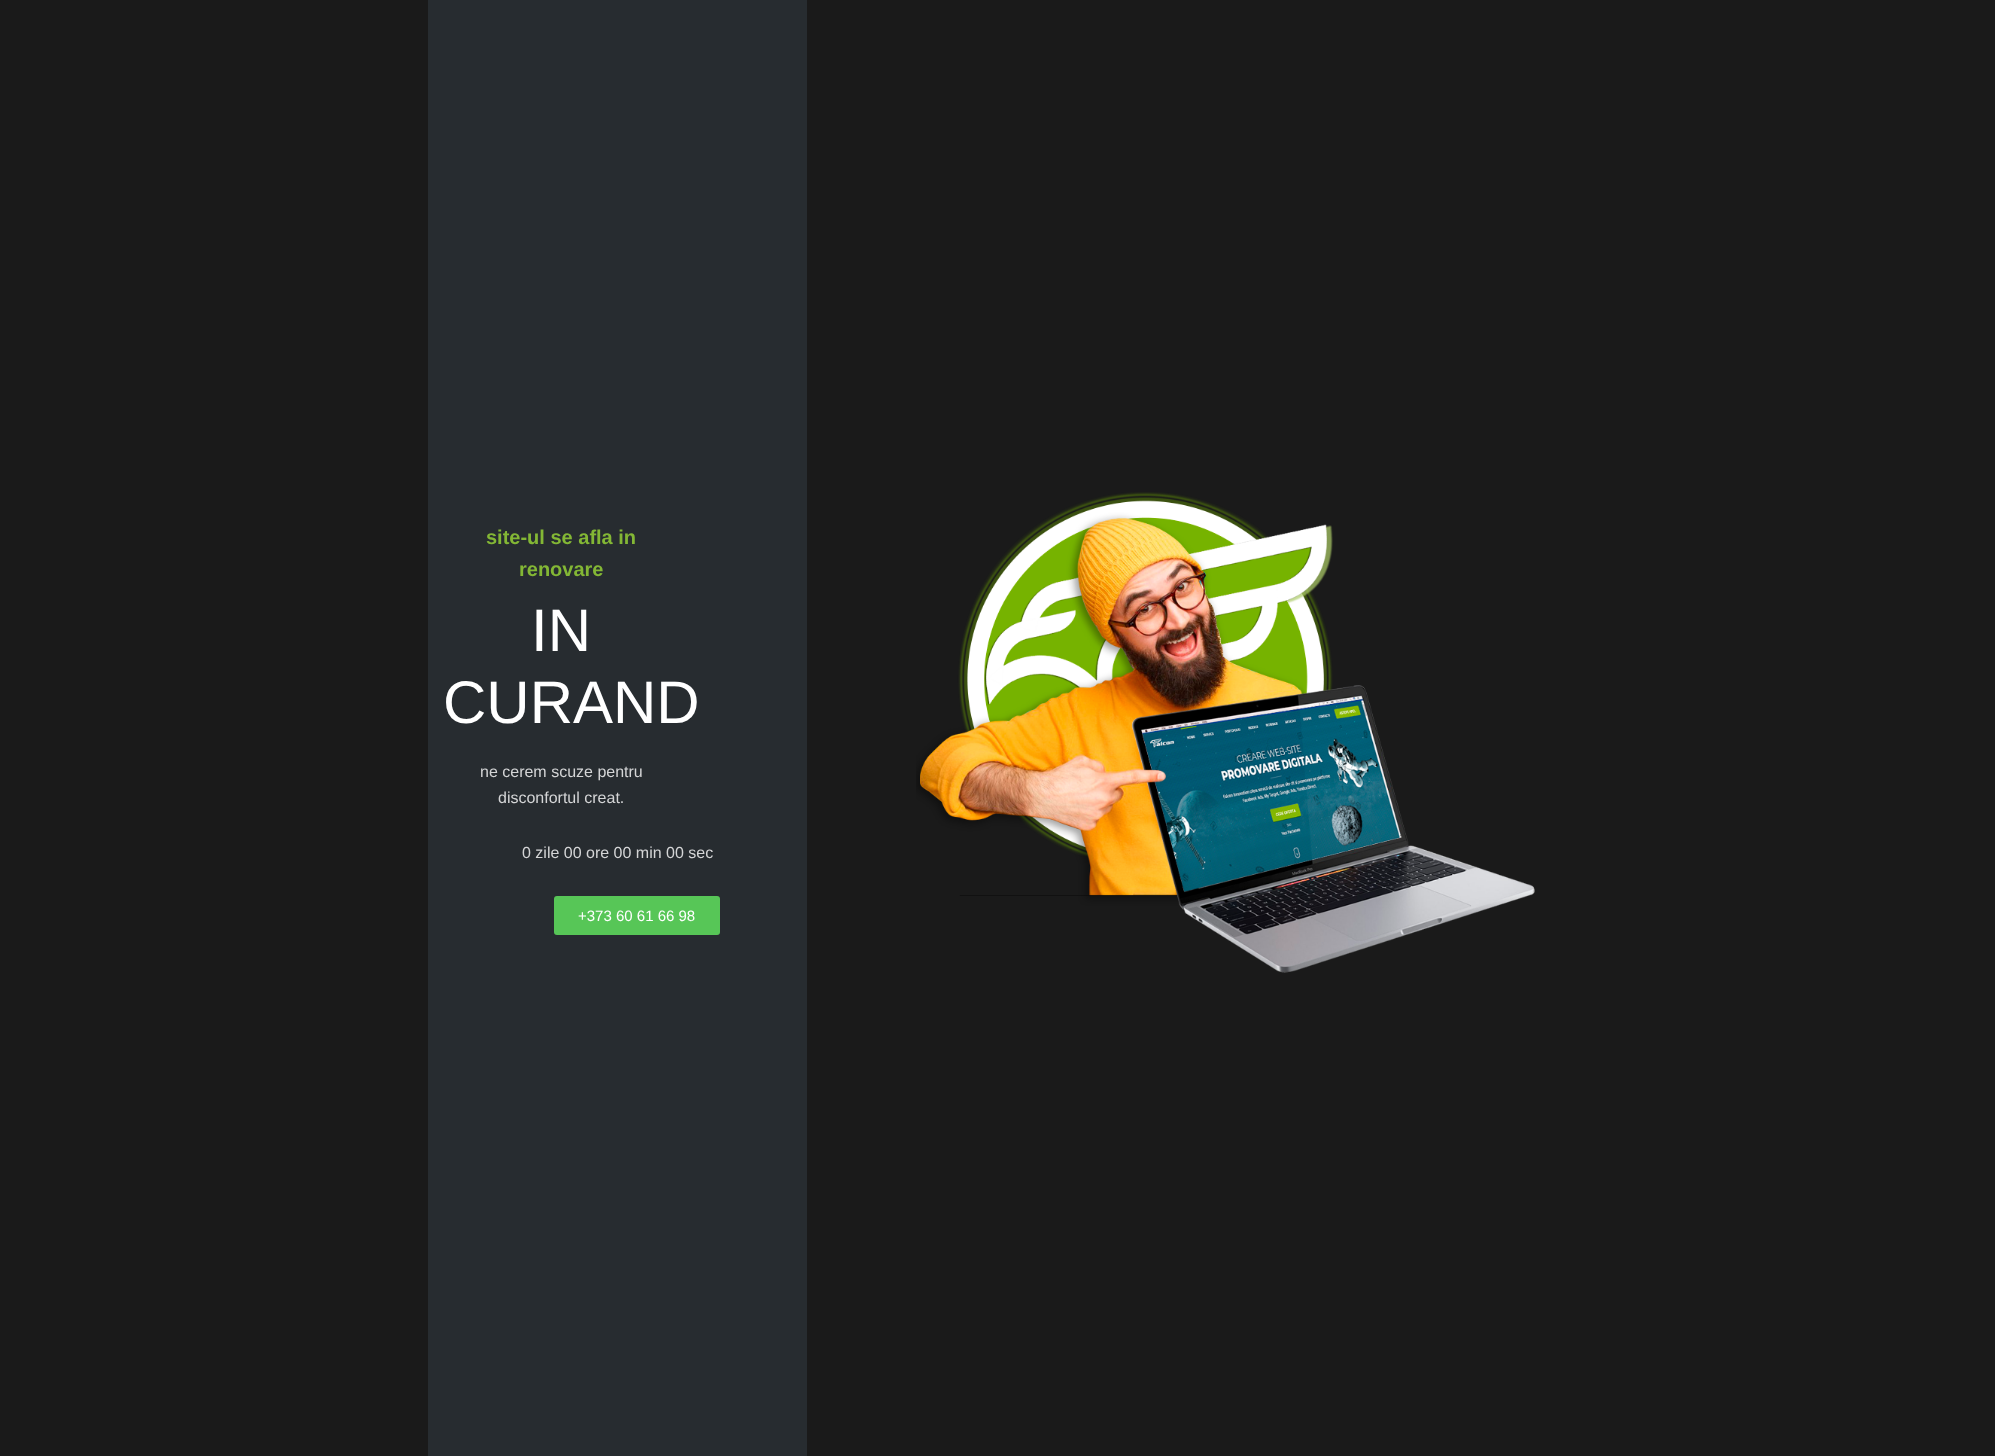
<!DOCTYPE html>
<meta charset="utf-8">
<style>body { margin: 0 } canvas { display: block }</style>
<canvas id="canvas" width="1995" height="1456"></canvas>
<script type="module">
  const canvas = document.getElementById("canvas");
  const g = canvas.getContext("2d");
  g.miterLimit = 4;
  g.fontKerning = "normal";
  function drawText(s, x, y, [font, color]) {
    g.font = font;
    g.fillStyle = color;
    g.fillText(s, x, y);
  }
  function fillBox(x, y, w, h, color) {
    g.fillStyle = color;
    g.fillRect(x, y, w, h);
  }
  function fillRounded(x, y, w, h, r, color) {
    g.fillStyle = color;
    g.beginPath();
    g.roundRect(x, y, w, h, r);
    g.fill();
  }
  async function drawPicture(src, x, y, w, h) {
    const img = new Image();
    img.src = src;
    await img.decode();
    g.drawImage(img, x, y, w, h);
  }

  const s1 = ["bold 20px Liberation Sans", "#83B735"];
  const s2 = ["60px Liberation Sans", "#FFFFFF"];
  const s3 = ["16px Liberation Sans", "#D4D5D6"];
  const s4 = ["15px Liberation Sans", "#FFFFFF"];

  fillBox(0, 0, 1995, 1456, "#1A1A1A");
  fillBox(428, 0, 379, 1456, "#272C30");
  drawText("site-ul se afla in", 486, 544, s1);
  drawText("renovare", 519, 576, s1);
  drawText("IN", 531, 651, s2);
  drawText("CURAND", 443, 723, s2);
  drawText("ne cerem scuze pentru", 480, 777, s3);
  drawText("disconfortul creat.", 498, 803, s3);
  drawText("0 zile 00 ore 00 min 00 sec", 522, 858, s3);
  fillRounded(554, 896, 166, 39, 3, "#57C657");
  drawText("+373 60 61 66 98", 578, 921, s4);
  await drawPicture("pic1.png", 916, 492, 619, 481);
</script>
